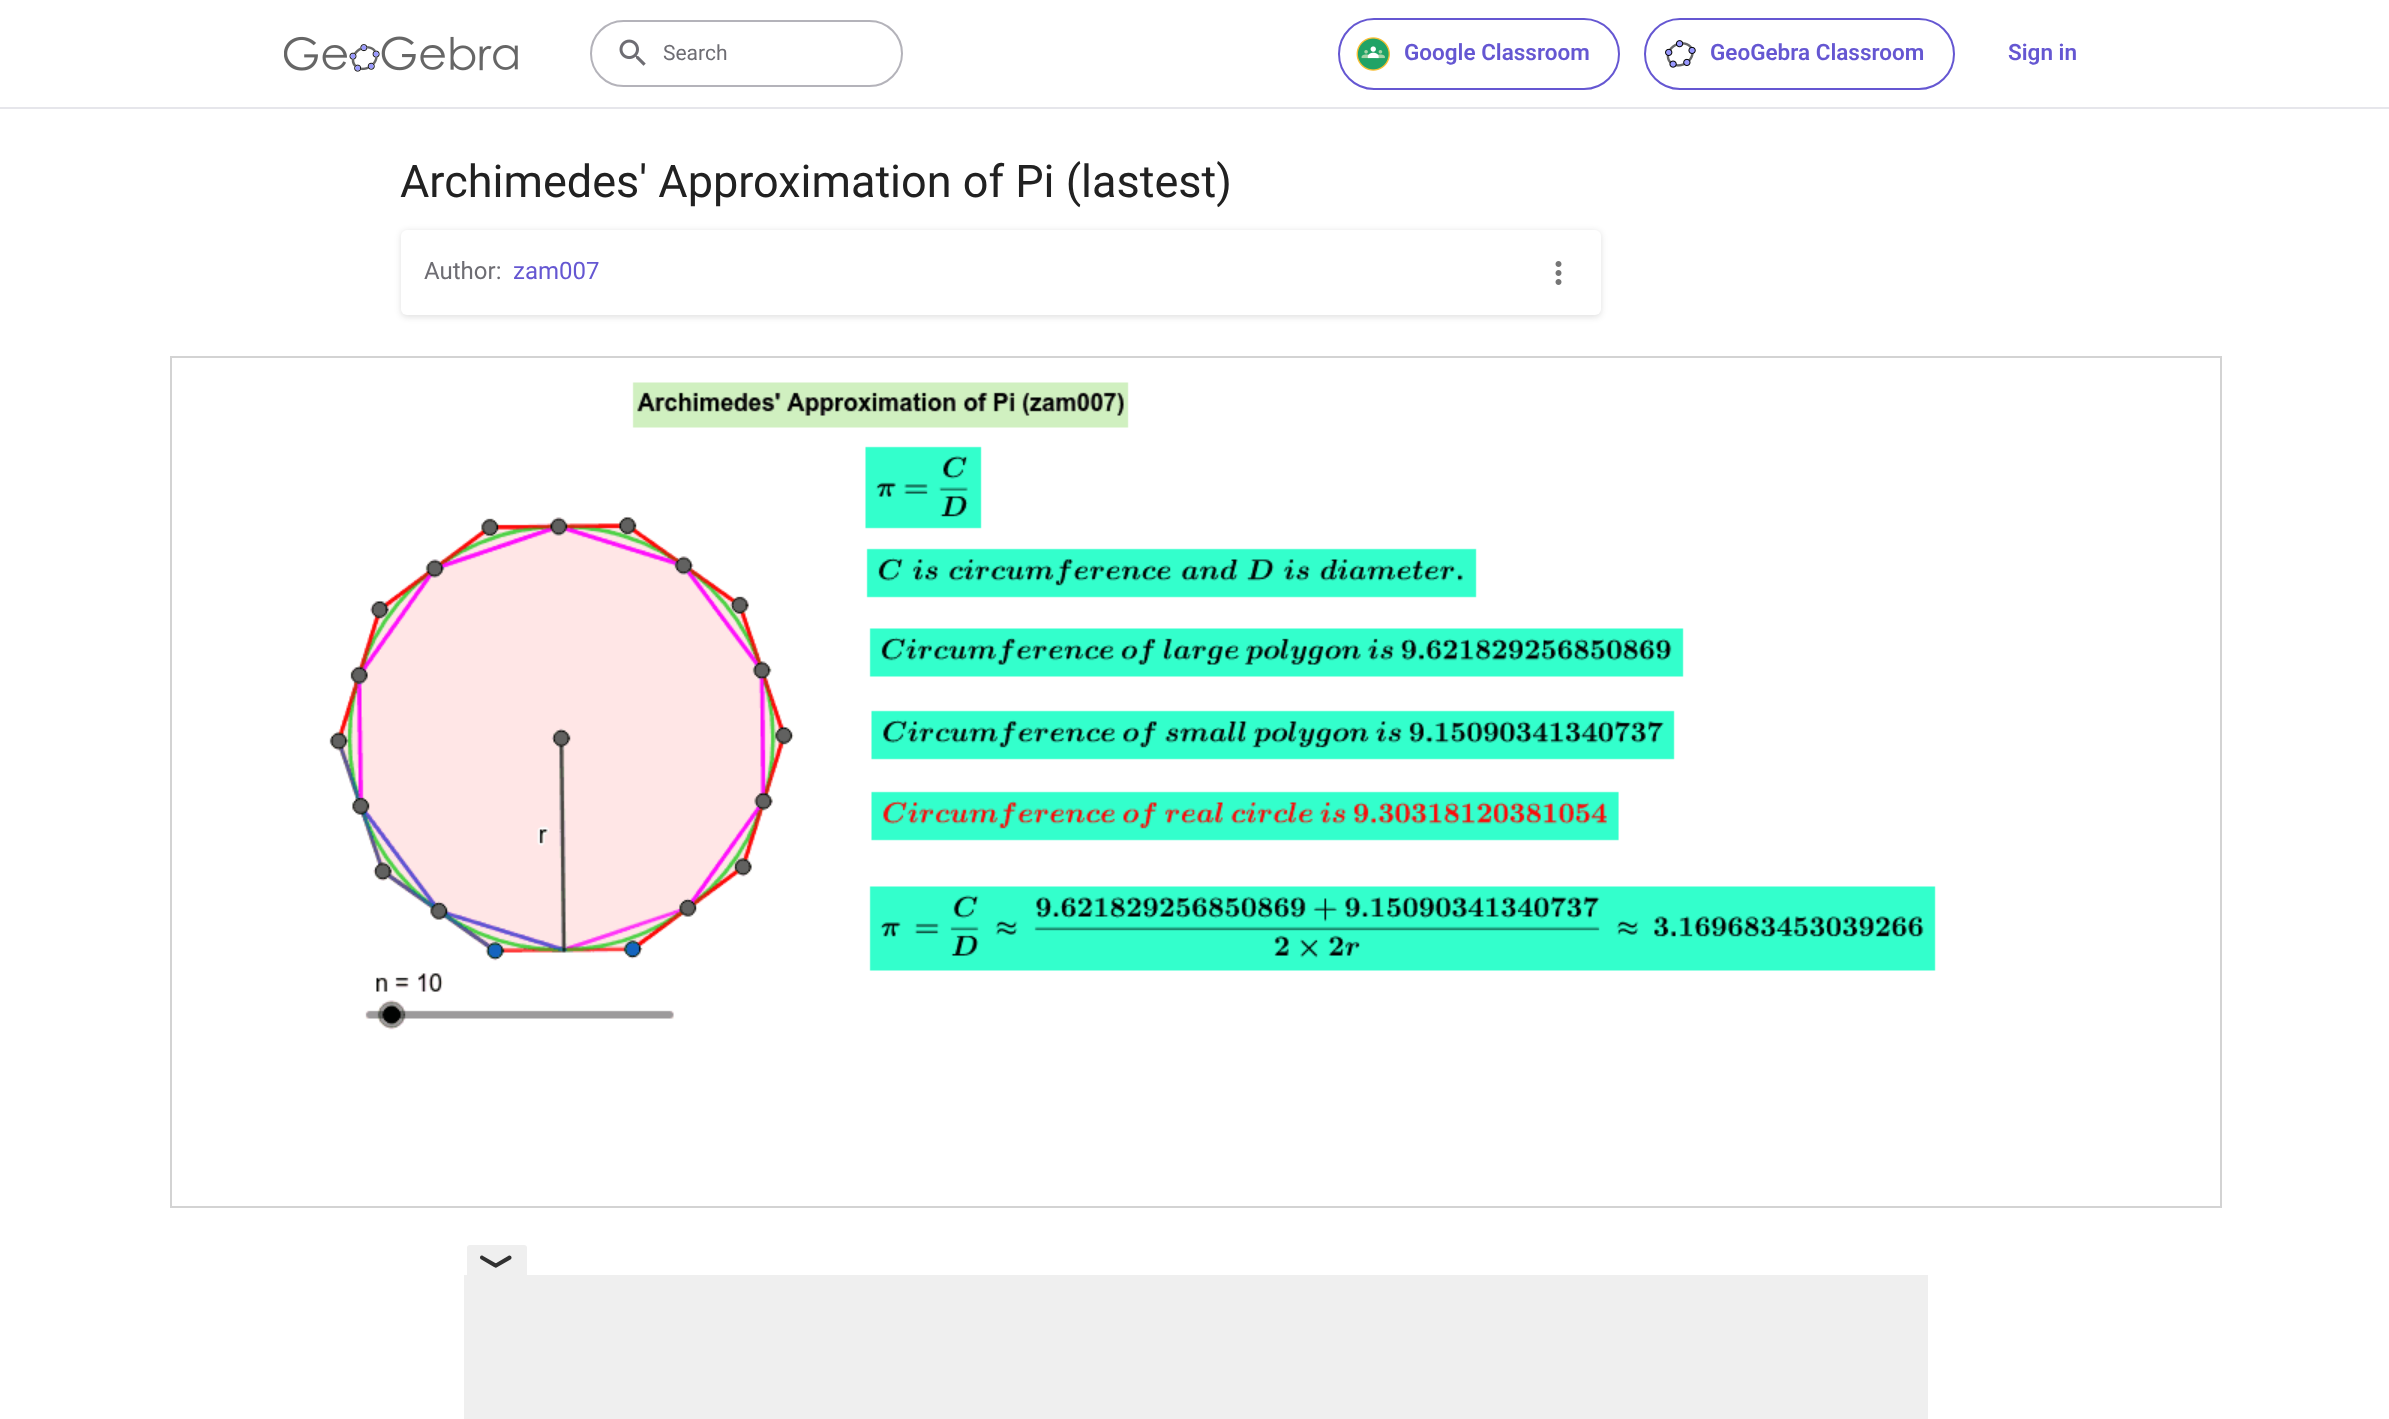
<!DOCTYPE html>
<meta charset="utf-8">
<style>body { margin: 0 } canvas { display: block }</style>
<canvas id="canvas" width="2389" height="1419"></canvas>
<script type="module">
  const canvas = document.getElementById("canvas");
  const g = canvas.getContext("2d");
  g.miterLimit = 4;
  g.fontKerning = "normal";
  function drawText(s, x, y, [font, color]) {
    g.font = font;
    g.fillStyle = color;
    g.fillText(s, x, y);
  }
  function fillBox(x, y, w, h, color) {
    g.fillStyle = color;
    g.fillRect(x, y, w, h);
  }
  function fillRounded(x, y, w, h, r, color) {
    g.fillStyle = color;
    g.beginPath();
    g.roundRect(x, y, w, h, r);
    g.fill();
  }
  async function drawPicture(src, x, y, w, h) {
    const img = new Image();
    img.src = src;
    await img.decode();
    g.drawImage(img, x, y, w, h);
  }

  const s1 = ["21px Roboto", "#6E6D73"];
  const s2 = ["600 22.5px Roboto", "#6557D2"];
  const s3 = ["45px Roboto", "#212121"];
  const s4 = ["24px Roboto", "#6E6D73"];
  const s5 = ["24px Roboto", "#6557D2"];

  fillBox(0, 0, 2389, 1419, "#FFFFFF");
  fillBox(0, 107, 2389, 2, "#E6E6EB");
  await drawPicture("pic1.png", 284, 36, 234, 36);
  g.beginPath();
  g.roundRect(591, 21, 311, 65, 32.5);
  g.strokeStyle = "#B4B3BA";
  g.lineWidth = 2;
  g.stroke();
  await drawPicture("pic2.png", 619, 39, 27, 27);
  drawText("Search", 663, 60, s1);
  g.beginPath();
  g.roundRect(1339, 19, 280, 70, 35);
  g.strokeStyle = "#6557D2";
  g.stroke();
  await drawPicture("pic3.png", 1356, 37, 34, 34);
  drawText("Google Classroom", 1404, 60, s2);
  g.beginPath();
  g.roundRect(1645, 19, 309, 70, 35);
  g.stroke();
  await drawPicture("pic4.png", 1665, 40, 31, 28);
  drawText("GeoGebra Classroom", 1710, 60, s2);
  drawText("Sign in", 2008, 60, s2);
  drawText("Archimedes' Approximation of Pi (lastest)", 400, 197, s3);
  g.fillStyle = "rgba(28, 28, 31, 0.14)";
  g.filter = "blur(3px)";
  g.beginPath();
  g.roundRect(401, 231, 1200, 86, 6);
  g.fill();
  g.filter = "none";
  fillRounded(401, 230, 1200, 85, 6, "#FFFFFF");
  drawText("Author:", 424, 279, s4);
  drawText("zam007", 513, 279, s5);
  await drawPicture("pic5.png", 1555, 261, 7, 24);
  await drawPicture("pic6.png", 329, 382, 1607, 648);
  g.strokeStyle = "#D3D3D3";
  g.strokeRect(171, 357, 2050, 850);
  g.fillStyle = "#EFEFEF";
  g.beginPath();
  g.roundRect(467, 1245, 60, 30, [3, 3, 0, 0]);
  g.fill();
  g.fillStyle = "#313131";
  g.beginPath();
  g.moveTo(483, 1256);
  g.lineTo(497, 1264);
  g.bezierCurveTo(498.5, 1266, 496, 1268.5, 494, 1267);
  g.lineTo(480.5, 1259);
  g.bezierCurveTo(479, 1257, 481, 1254.5, 483, 1256);
  g.closePath();
  g.fill();
  g.beginPath();
  g.moveTo(495.5, 1263.5);
  g.lineTo(509, 1255.5);
  g.bezierCurveTo(511.5, 1255, 512.5, 1258.5, 510.5, 1259.5);
  g.lineTo(496.5, 1267.5);
  g.bezierCurveTo(494.5, 1268, 493, 1264.5, 495.5, 1263.5);
  g.closePath();
  g.fill();
  fillBox(464, 1275, 1464, 144, "#EFEFEF");
</script>
